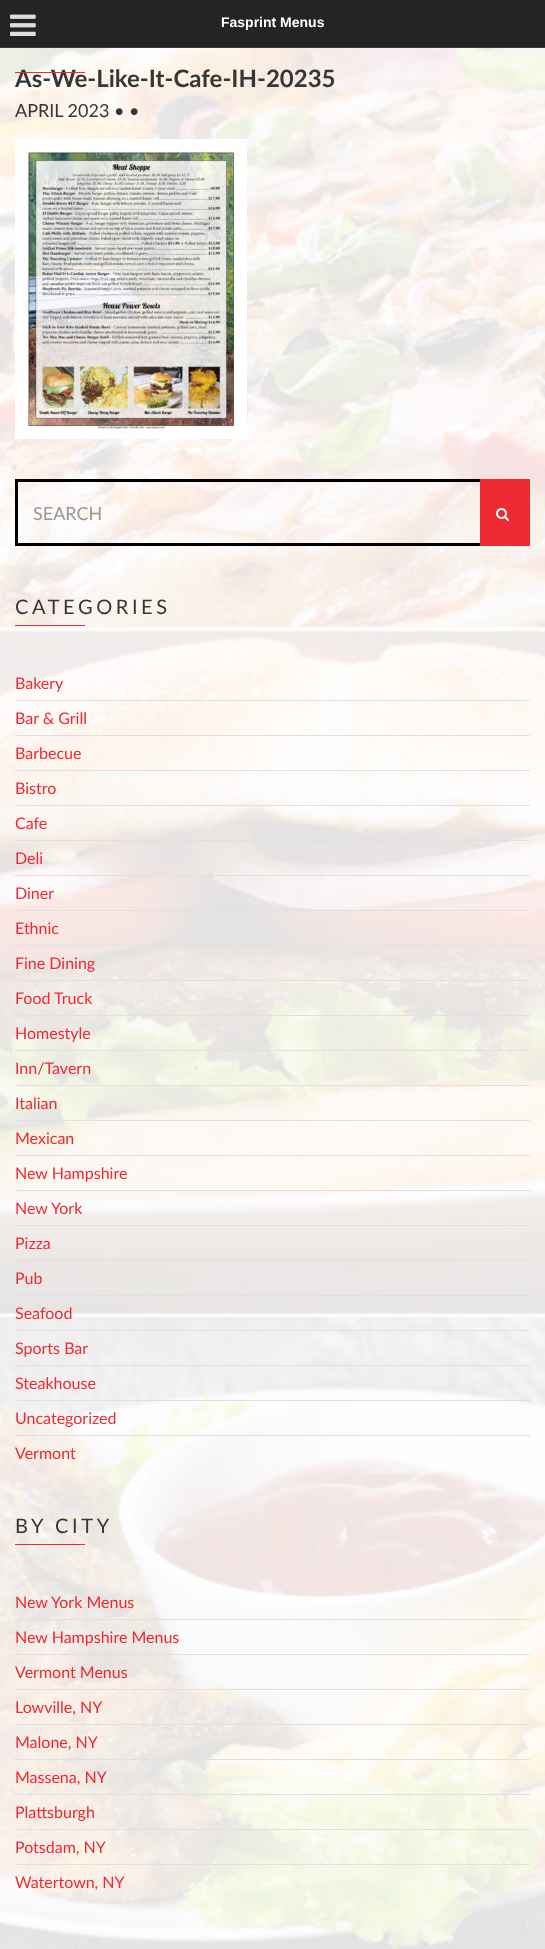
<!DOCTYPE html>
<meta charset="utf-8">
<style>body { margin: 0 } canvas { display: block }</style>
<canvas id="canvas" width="545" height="1949"></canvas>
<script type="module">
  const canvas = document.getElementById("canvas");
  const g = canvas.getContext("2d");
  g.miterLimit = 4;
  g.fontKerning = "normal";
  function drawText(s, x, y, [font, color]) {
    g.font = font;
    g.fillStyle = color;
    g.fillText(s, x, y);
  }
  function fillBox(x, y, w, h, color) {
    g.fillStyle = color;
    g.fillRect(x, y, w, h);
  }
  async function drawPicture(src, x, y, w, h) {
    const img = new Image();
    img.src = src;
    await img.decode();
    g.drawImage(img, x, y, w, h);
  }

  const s1 = ["bold 14px Liberation Sans", "#FFFFFF"];
  const s2 = ["bold 24px Lato", "#363636"];
  const s3 = ["18px Lato", "#363636"];
  const s4 = ["18px Lato", "#9A9897"];
  const s5 = ["20px Lato", "#363636"];
  const s6 = ["16px Lato", "#ED2A31"];

  fillBox(0, 0, 545, 1949, "#FFFFFF");
  await drawPicture("pic1.png", 0, 48, 545, 1901);
  fillBox(0, 0, 545, 47, "#242424");
  fillBox(0, 47, 545, 1, "#3A3A3A");
  await drawPicture("pic2.png", 10, 14, 26, 22);
  drawText("Fasprint Menus", 221, 27, s1);
  drawText("As-We-Like-It-Cafe-IH-20235", 15, 87, s2);
  drawText("APRIL 2023 • •", 15, 117, s3);
  await drawPicture("pic3.png", 15, 139, 232, 300);
  fillBox(15, 72, 70, 1, "#ED2A31");
  g.strokeStyle = "#000000";
  g.lineWidth = 3;
  g.strokeRect(16.5, 480.5, 512, 64);
  drawText("SEARCH", 33, 520, s4);
  fillBox(480, 479, 50, 67, "#ED2A31");
  await drawPicture("pic4.png", 496, 508, 13, 13);
  g.letterSpacing = "3.6px";
  drawText("CATEGORIES", 15, 614, s5);
  fillBox(15, 625, 70, 1, "#ED2A31");
  fillBox(15, 700, 515, 1, "#E0E0E0");
  g.letterSpacing = "0px";
  drawText("Bakery", 15, 689, s6);
  fillBox(15, 735, 515, 1, "#E0E0E0");
  drawText("Bar & Grill", 15, 724, s6);
  fillBox(15, 770, 515, 1, "#E0E0E0");
  drawText("Barbecue", 15, 759, s6);
  fillBox(15, 805, 515, 1, "#E0E0E0");
  drawText("Bistro", 15, 794, s6);
  fillBox(15, 840, 515, 1, "#E0E0E0");
  drawText("Cafe", 15, 829, s6);
  fillBox(15, 875, 515, 1, "#E0E0E0");
  drawText("Deli", 15, 864, s6);
  fillBox(15, 910, 515, 1, "#E0E0E0");
  drawText("Diner", 15, 899, s6);
  fillBox(15, 945, 515, 1, "#E0E0E0");
  drawText("Ethnic", 15, 934, s6);
  fillBox(15, 980, 515, 1, "#E0E0E0");
  drawText("Fine Dining", 15, 969, s6);
  fillBox(15, 1015, 515, 1, "#E0E0E0");
  drawText("Food Truck", 15, 1004, s6);
  fillBox(15, 1050, 515, 1, "#E0E0E0");
  drawText("Homestyle", 15, 1039, s6);
  fillBox(15, 1085, 515, 1, "#E0E0E0");
  drawText("Inn/Tavern", 15, 1074, s6);
  fillBox(15, 1120, 515, 1, "#E0E0E0");
  drawText("Italian", 15, 1109, s6);
  fillBox(15, 1155, 515, 1, "#E0E0E0");
  drawText("Mexican", 15, 1144, s6);
  fillBox(15, 1190, 515, 1, "#E0E0E0");
  drawText("New Hampshire", 15, 1179, s6);
  fillBox(15, 1225, 515, 1, "#E0E0E0");
  drawText("New York", 15, 1214, s6);
  fillBox(15, 1260, 515, 1, "#E0E0E0");
  drawText("Pizza", 15, 1249, s6);
  fillBox(15, 1295, 515, 1, "#E0E0E0");
  drawText("Pub", 15, 1284, s6);
  fillBox(15, 1330, 515, 1, "#E0E0E0");
  drawText("Seafood", 15, 1319, s6);
  fillBox(15, 1365, 515, 1, "#E0E0E0");
  drawText("Sports Bar", 15, 1354, s6);
  fillBox(15, 1400, 515, 1, "#E0E0E0");
  drawText("Steakhouse", 15, 1389, s6);
  fillBox(15, 1435, 515, 1, "#E0E0E0");
  drawText("Uncategorized", 15, 1424, s6);
  drawText("Vermont", 15, 1459, s6);
  g.letterSpacing = "3.6px";
  drawText("BY CITY", 15, 1533, s5);
  fillBox(15, 1544, 70, 1, "#ED2A31");
  fillBox(15, 1619, 515, 1, "#E0E0E0");
  g.letterSpacing = "0px";
  drawText("New York Menus", 15, 1608, s6);
  fillBox(15, 1654, 515, 1, "#E0E0E0");
  drawText("New Hampshire Menus", 15, 1643, s6);
  fillBox(15, 1689, 515, 1, "#E0E0E0");
  drawText("Vermont Menus", 15, 1678, s6);
  fillBox(15, 1724, 515, 1, "#E0E0E0");
  drawText("Lowville, NY", 15, 1713, s6);
  fillBox(15, 1759, 515, 1, "#E0E0E0");
  drawText("Malone, NY", 15, 1748, s6);
  fillBox(15, 1794, 515, 1, "#E0E0E0");
  drawText("Massena, NY", 15, 1783, s6);
  fillBox(15, 1829, 515, 1, "#E0E0E0");
  drawText("Plattsburgh", 15, 1818, s6);
  fillBox(15, 1864, 515, 1, "#E0E0E0");
  drawText("Potsdam, NY", 15, 1853, s6);
  drawText("Watertown, NY", 15, 1888, s6);
</script>
